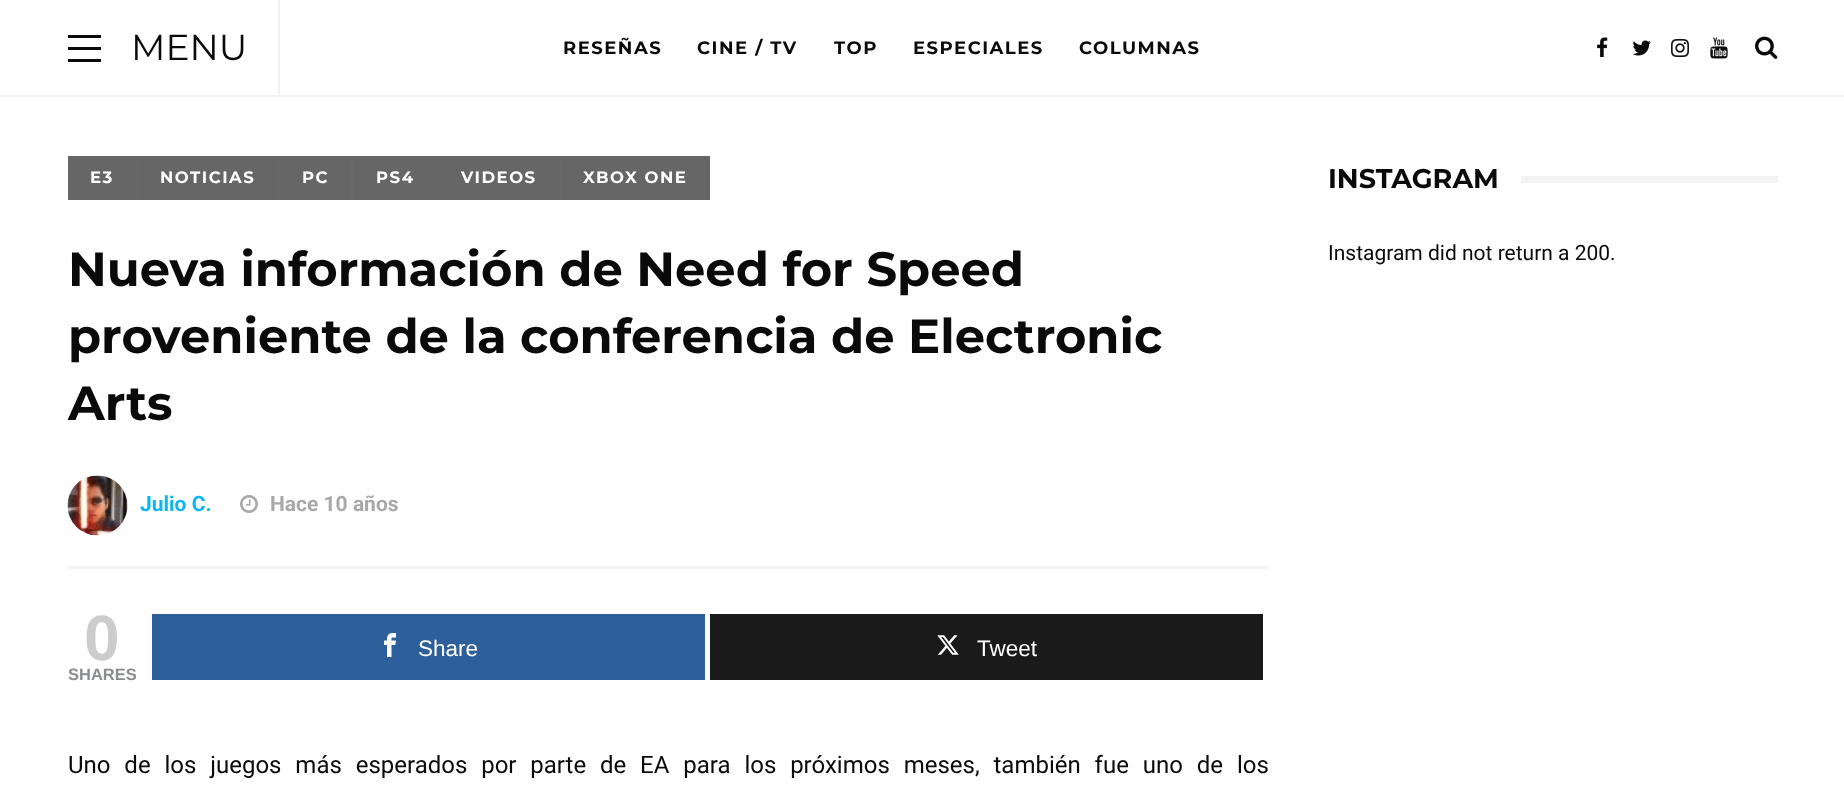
<!DOCTYPE html>
<meta charset="utf-8">
<style>body { margin: 0 } canvas { display: block }</style>
<canvas id="canvas" width="1844" height="803"></canvas>
<script type="module">
  const canvas = document.getElementById("canvas");
  const g = canvas.getContext("2d");
  g.miterLimit = 4;
  g.fontKerning = "normal";
  function drawText(s, x, y, [font, color]) {
    g.font = font;
    g.fillStyle = color;
    g.fillText(s, x, y);
  }
  function fillBox(x, y, w, h, color) {
    g.fillStyle = color;
    g.fillRect(x, y, w, h);
  }
  async function drawPicture(src, x, y, w, h) {
    const img = new Image();
    img.src = src;
    await img.decode();
    g.drawImage(img, x, y, w, h);
  }

  const s1 = ["36px Montserrat", "#0A0A0A"];
  const s2 = ["bold 18px Montserrat", "#0A0A0A"];
  const s3 = ["bold 16.5px Montserrat", "#FFFFFF"];
  const s4 = ["bold 48px Montserrat", "#0A0A0A"];
  const s5 = ["bold 21px Roboto", "#0AB6F2"];
  const s6 = ["bold 21px Roboto", "#A8A8A8"];
  const s7 = ["bold 64px Liberation Sans", "#CCCCCC"];
  const s8 = ["bold 16.5px Liberation Sans", "#8A8C8E"];
  const s9 = ["22.5px Liberation Sans", "#FFFFFF"];
  const s10 = ["24px Roboto", "#0A0A0A"];
  const s11 = ["bold 27px Montserrat", "#0A0A0A"];
  const s12 = ["21px Roboto", "#0A0A0A"];

  fillBox(0, 0, 1844, 803, "#FFFFFF");
  fillBox(0, 95, 1844, 2, "#F2F2F2");
  fillBox(278, 0, 2, 95, "#F2F2F2");
  fillBox(68, 47, 33, 3, "#0A0A0A");
  fillBox(68, 35, 33, 3, "#0A0A0A");
  fillBox(68, 59, 33, 3, "#0A0A0A");
  drawText("MENU", 131, 60, s1);
  g.letterSpacing = "1.5px";
  drawText("RESEÑAS", 563, 54, s2);
  drawText("CINE / TV", 697, 54, s2);
  drawText("TOP", 834, 54, s2);
  drawText("ESPECIALES", 913, 54, s2);
  drawText("COLUMNAS", 1079, 54, s2);
  await drawPicture("pic1.png", 1597, 37, 11, 20);
  await drawPicture("pic2.png", 1632, 40, 19, 16);
  await drawPicture("pic3.png", 1671, 39, 18, 18);
  await drawPicture("pic4.png", 1710, 37, 18, 22);
  await drawPicture("pic5.png", 1755, 36, 23, 23);
  fillBox(68, 156, 69, 44, "#666666");
  fillBox(137, 156, 1, 44, "#696969");
  drawText("E3", 90, 183, s3);
  fillBox(138, 156, 140, 44, "#666666");
  fillBox(278, 156, 1, 44, "#696969");
  drawText("NOTICIAS", 160, 183, s3);
  fillBox(279, 156, 72, 44, "#666666");
  fillBox(351, 156, 2, 44, "#696969");
  drawText("PC", 302, 183, s3);
  fillBox(353, 156, 84, 44, "#666666");
  fillBox(437, 156, 1, 44, "#696969");
  drawText("PS4", 376, 183, s3);
  fillBox(438, 156, 122, 44, "#666666");
  fillBox(560, 156, 1, 44, "#696969");
  drawText("VIDEOS", 461, 183, s3);
  fillBox(561, 156, 149, 44, "#666666");
  drawText("XBOX ONE", 583, 183, s3);
  g.letterSpacing = "0px";
  drawText("Nueva información de Need for Speed", 68, 286, s4);
  drawText("proveniente de la conferencia de Electronic", 68, 353, s4);
  drawText("Arts", 68, 420, s4);
  await drawPicture("pic6.png", 67, 475, 61, 61);
  drawText("Julio C.", 140, 511, s5);
  await drawPicture("pic7.png", 240, 495, 18, 18);
  drawText("Hace 10 años", 270, 511, s6);
  fillBox(68, 566, 1200, 3, "#F2F2F2");
  drawText("0", 84, 660, s7);
  drawText("SHARES", 68, 680, s8);
  fillBox(152, 614, 553, 66, "#2D5F9A");
  await drawPicture("pic8.png", 384, 633, 12, 24);
  drawText("Share", 418, 656, s9);
  fillBox(710, 614, 553, 66, "#1A1A1A");
  await drawPicture("pic9.png", 937, 635, 22, 20);
  drawText("Tweet", 977, 656, s9);
  g.wordSpacing = "7.9px";
  drawText("Uno de los juegos más esperados por parte de EA para los próximos meses, también fue uno de los", 68, 773, s10);
  g.wordSpacing = "0px";
  drawText("INSTAGRAM", 1328, 188, s11);
  fillBox(1521, 176, 257, 7, "#F2F2F2");
  drawText("Instagram did not return a 200.", 1328, 260, s12);
</script>
